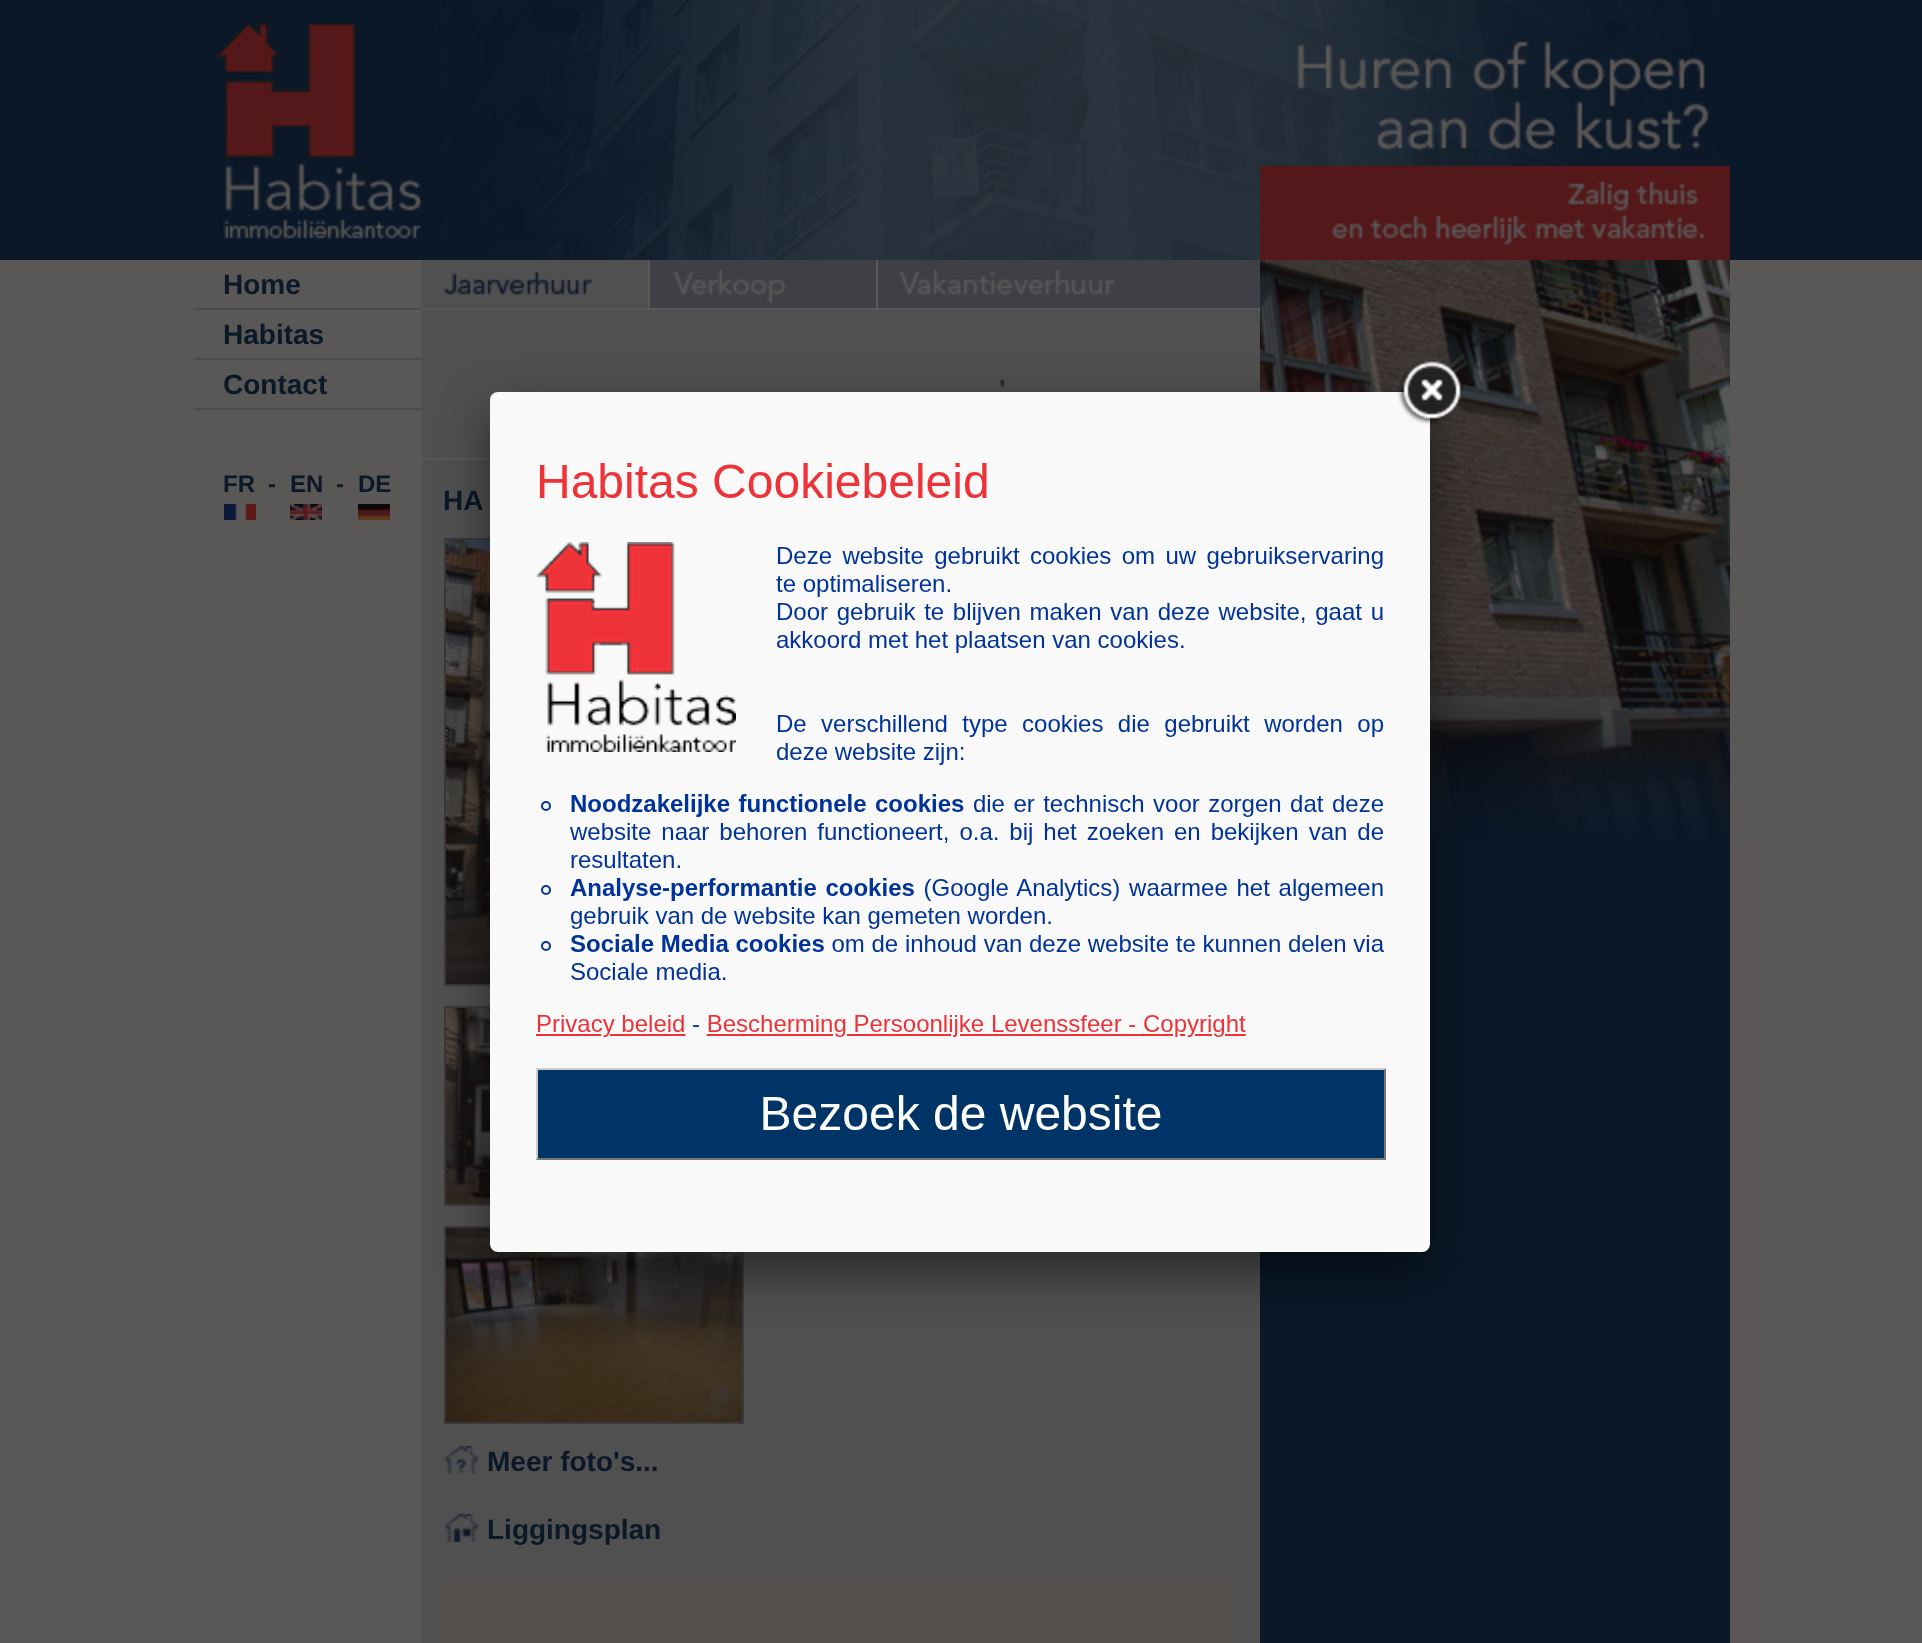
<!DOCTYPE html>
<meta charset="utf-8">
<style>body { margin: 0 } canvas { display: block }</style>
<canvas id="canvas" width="1922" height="1643"></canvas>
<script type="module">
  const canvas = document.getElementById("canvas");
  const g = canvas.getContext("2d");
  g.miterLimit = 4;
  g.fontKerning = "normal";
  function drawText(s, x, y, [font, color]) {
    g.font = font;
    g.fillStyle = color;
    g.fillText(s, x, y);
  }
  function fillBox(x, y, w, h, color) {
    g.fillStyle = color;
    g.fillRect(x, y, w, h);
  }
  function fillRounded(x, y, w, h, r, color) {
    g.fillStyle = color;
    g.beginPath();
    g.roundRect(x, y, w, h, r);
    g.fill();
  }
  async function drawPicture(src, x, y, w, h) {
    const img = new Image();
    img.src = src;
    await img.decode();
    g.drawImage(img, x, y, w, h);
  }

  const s1 = ["bold 28px Liberation Sans", "#0B1828"];
  const s2 = ["bold 24px Liberation Sans", "#0B1828"];
  const s3 = ["bold 28px Liberation Sans", "#282E3A"];

  fillBox(0, 0, 1922, 1643, "#5A5757");
  fillBox(0, 0, 194, 260, "#0B1828");
  fillBox(1730, 0, 192, 260, "#0B1828");
  await drawPicture("pic1.png", 194, 0, 228, 260);
  await drawPicture("pic2.png", 422, 0, 838, 260);
  await drawPicture("pic3.png", 1260, 0, 470, 260);
  drawText("Home", 223, 294, s1);
  fillBox(194, 308, 228, 2, "#4B4C50");
  drawText("Habitas", 223, 344, s1);
  fillBox(194, 358, 228, 2, "#4B4C50");
  drawText("Contact", 223, 394, s1);
  fillBox(194, 408, 228, 2, "#4B4C50");
  drawText("FR", 223, 492, s2);
  drawText("-", 268, 492, s2);
  drawText("EN", 290, 492, s2);
  drawText("-", 336, 492, s2);
  drawText("DE", 358, 492, s2);
  await drawPicture("pic4.png", 224, 504, 32, 16);
  await drawPicture("pic5.png", 290, 504, 32, 16);
  await drawPicture("pic6.png", 358, 504, 32, 16);
  await drawPicture("pic7.png", 422, 260, 226, 48);
  await drawPicture("pic8.png", 650, 260, 226, 48);
  await drawPicture("pic9.png", 878, 260, 382, 48);
  fillBox(422, 310, 838, 148, "#505051");
  drawText("'", 999, 399, s3);
  fillBox(422, 460, 838, 1183, "#505051");
  drawText("HA", 443, 510, s1);
  g.strokeStyle = "#3A3838";
  g.lineWidth = 2;
  g.strokeRect(445, 539, 298, 446);
  await drawPicture("pic10.png", 446, 540, 44, 444);
  g.strokeRect(445, 1007, 298, 198);
  await drawPicture("pic11.png", 446, 1008, 44, 196);
  g.strokeRect(445, 1227, 298, 196);
  await drawPicture("pic12.png", 446, 1228, 296, 194);
  await drawPicture("pic13.png", 444, 1446, 34, 28);
  drawText("Meer foto's...", 487, 1471, s1);
  await drawPicture("pic14.png", 444, 1514, 34, 28);
  drawText("Liggingsplan", 487, 1539, s1);
  fillBox(444, 1580, 790, 63, "#524F4D");
  fillBox(1260, 841, 470, 802, "#0B1828");
  await drawPicture("pic15.png", 1260, 260, 470, 581);
  g.fillStyle = "rgba(0, 0, 0, 0.5)";
  g.filter = "blur(25px)";
  g.beginPath();
  g.roundRect(490, 412, 940, 860, 8);
  g.fill();
  g.filter = "none";
  fillRounded(490, 392, 940, 860, 8, "#F9F9F9");
  await drawPicture("pic16.png", 1397, 361, 64, 64);
  await drawPicture("pic17.png", 536, 463, 850, 697);
</script>
